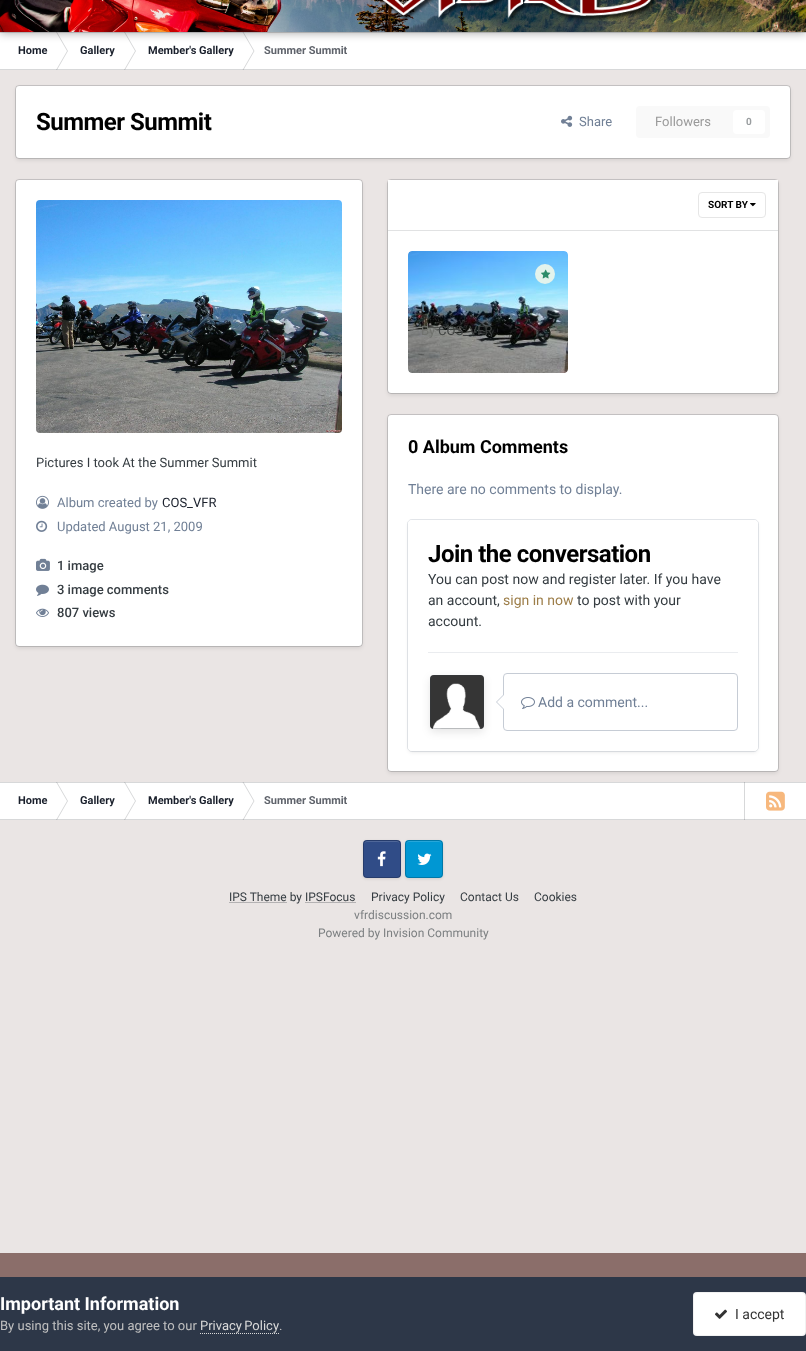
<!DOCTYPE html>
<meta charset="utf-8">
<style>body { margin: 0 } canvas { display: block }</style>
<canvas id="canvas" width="806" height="1351"></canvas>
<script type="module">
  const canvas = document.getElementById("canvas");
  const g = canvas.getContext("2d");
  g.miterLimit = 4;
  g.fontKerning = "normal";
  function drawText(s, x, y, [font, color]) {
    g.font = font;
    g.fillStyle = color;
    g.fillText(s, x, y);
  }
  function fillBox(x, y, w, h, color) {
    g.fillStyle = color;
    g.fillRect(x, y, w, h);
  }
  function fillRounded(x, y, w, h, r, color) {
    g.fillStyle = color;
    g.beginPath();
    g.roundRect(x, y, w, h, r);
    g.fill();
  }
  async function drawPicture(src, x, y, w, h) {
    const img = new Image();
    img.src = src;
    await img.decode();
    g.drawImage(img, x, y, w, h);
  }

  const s1 = ["bold 11px Roboto", "#1A202C"];
  const s2 = ["bold 11px Roboto", "#5F636B"];
  const s3 = ["bold 24px Roboto", "#000000"];
  const s4 = ["13px Roboto", "#718096"];
  const s5 = ["13px Roboto", "#999999"];
  const s6 = ["bold 10px Roboto", "#9A9EA0"];
  const s7 = ["13px Roboto", "#353C41"];
  const s8 = ["13px Roboto", "#1A202C"];
  const s9 = ["500 13px Roboto", "#353C41"];
  const s10 = ["bold 10px Roboto", "#000000"];
  const s11 = ["600 13px Roboto", "#5A798B"];
  const s12 = ["13px Roboto", "#70726E"];
  const s13 = ["13px Roboto", "#3E4140"];
  const s14 = ["bold 18px Roboto", "#000000"];
  const s15 = ["14px Roboto", "#718096"];
  const s16 = ["14px Roboto", "#353C41"];
  const s17 = ["14px Roboto", "#9D7E49"];
  const s18 = ["12px Roboto", "#353C41"];
  const s19 = ["12px Roboto", "#7D8082"];
  const s20 = ["bold 18px Roboto", "#FFFFFF"];
  const s21 = ["13px Roboto", "#C0C0C0"];
  const s22 = ["13px Roboto", "#DADADA"];
  const s23 = ["14px Roboto", "#333333"];

  fillBox(0, 0, 806, 1351, "#8B6E6A");
  fillBox(0, 70, 806, 1183, "#EAE5E4");
  fillBox(0, 32, 806, 38, "#FFFFFF");
  g.fillStyle = "#D7D8D9";
  g.beginPath();
  g.moveTo(56, 32);
  g.lineTo(57, 32);
  g.lineTo(68, 51);
  g.lineTo(67, 51);
  g.closePath();
  g.moveTo(56, 70);
  g.lineTo(57, 70);
  g.lineTo(68, 51);
  g.lineTo(67, 51);
  g.closePath();
  g.fill();
  g.beginPath();
  g.moveTo(124, 32);
  g.lineTo(125, 32);
  g.lineTo(136, 51);
  g.lineTo(135, 51);
  g.closePath();
  g.moveTo(124, 70);
  g.lineTo(125, 70);
  g.lineTo(136, 51);
  g.lineTo(135, 51);
  g.closePath();
  g.fill();
  g.beginPath();
  g.moveTo(242.5, 32);
  g.lineTo(243.5, 32);
  g.lineTo(254.5, 51);
  g.lineTo(253.5, 51);
  g.closePath();
  g.moveTo(242.5, 70);
  g.lineTo(243.5, 70);
  g.lineTo(254.5, 51);
  g.lineTo(253.5, 51);
  g.closePath();
  g.fill();
  fillBox(0, 32, 806, 1, "rgba(53, 60, 65, 0.2)");
  g.fillStyle = "rgba(0, 0, 0, 0.35)";
  g.filter = "blur(5px)";
  g.beginPath();
  g.rect(0, -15, 806, 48);
  g.fill();
  g.filter = "none";
  await drawPicture("pic1.png", 0, 0, 806, 32);
  await drawPicture("pic2.png", 379, 0, 277, 22);
  fillBox(0, 69, 806, 1, "rgba(53, 60, 65, 0.2)");
  drawText("Home", 18, 54, s1);
  drawText("Gallery", 80, 54, s1);
  drawText("Member's Gallery", 148, 54, s1);
  drawText("Summer Summit", 264, 54, s2);
  g.fillStyle = "rgba(0, 0, 0, 0.1)";
  g.filter = "blur(2px)";
  g.beginPath();
  g.roundRect(16, 88, 774, 72, 3);
  g.fill();
  g.filter = "none";
  fillRounded(16, 86, 774, 72, 3, "#FFFFFF");
  g.beginPath();
  g.roundRect(15.5, 85.5, 775, 73, 3.5);
  g.strokeStyle = "rgba(53, 60, 65, 0.2)";
  g.stroke();
  g.letterSpacing = "-0.5px";
  drawText("Summer Summit", 36, 130, s3);
  await drawPicture("pic3.png", 561, 115, 12, 12);
  g.letterSpacing = "0px";
  drawText("Share", 579, 126, s4);
  fillRounded(636, 106, 134, 32, 4, "#F9F9F9");
  drawText("Followers", 655, 126, s5);
  fillRounded(733, 110, 32, 24, 4, "#FFFFFF");
  drawText("0", 746, 125, s6);
  g.fillStyle = "rgba(0, 0, 0, 0.1)";
  g.filter = "blur(2px)";
  g.beginPath();
  g.roundRect(16, 182, 346, 466, 3);
  g.fill();
  g.filter = "none";
  fillRounded(16, 180, 346, 466, 3, "#FFFFFF");
  g.beginPath();
  g.roundRect(15.5, 179.5, 347, 467, 3.5);
  g.stroke();
  await drawPicture("pic4.png", 36, 200, 306, 233);
  drawText("Pictures I took At the Summer Summit", 36, 467, s7);
  await drawPicture("pic5.png", 36, 495, 13, 14);
  drawText("Album created by", 57, 507, s4);
  drawText("COS_VFR", 162, 507, s8);
  await drawPicture("pic6.png", 36, 520, 12, 12);
  drawText("Updated August 21, 2009", 57, 531, s4);
  await drawPicture("pic7.png", 36, 558, 14, 13);
  drawText("1 image", 57, 570, s9);
  await drawPicture("pic8.png", 36, 584, 13, 12);
  drawText("3 image comments", 57, 594, s9);
  await drawPicture("pic9.png", 36, 608, 13, 9);
  drawText("807 views", 57, 617, s9);
  g.fillStyle = "rgba(0, 0, 0, 0.1)";
  g.filter = "blur(2px)";
  g.beginPath();
  g.roundRect(388, 182, 390, 213, 3);
  g.fill();
  g.filter = "none";
  fillRounded(388, 180, 390, 213, 3, "#FFFFFF");
  g.beginPath();
  g.roundRect(387.5, 179.5, 391, 214, 3.5);
  g.stroke();
  fillBox(388, 180, 390, 3, "#FFFFFF");
  fillBox(388, 230, 390, 1, "#E1E2E3");
  await drawPicture("pic10.png", 750, 203, 6, 4);
  g.beginPath();
  g.roundRect(698.5, 192.5, 67, 25, 3.5);
  g.strokeStyle = "#E6E6E6";
  g.stroke();
  drawText("SORT BY", 708, 208, s10);
  await drawPicture("pic11.png", 408, 251, 160, 122);
  g.fillStyle = "#E3F3EC";
  g.beginPath();
  g.arc(545, 274, 10, 0, Math.PI * 2);
  g.fill();
  await drawPicture("pic12.png", 541, 269, 10, 10);
  drawText("t", 421, 312, s11);
  drawText("n", 523, 312, s11);
  drawText("By", 421, 335, s12);
  drawText("COS_VFR", 438, 335, s13);
  g.fillStyle = "rgba(0, 0, 0, 0.1)";
  g.filter = "blur(2px)";
  g.beginPath();
  g.roundRect(388, 417, 390, 356, 3);
  g.fill();
  g.filter = "none";
  fillRounded(388, 415, 390, 356, 3, "#FFFFFF");
  g.beginPath();
  g.roundRect(387.5, 414.5, 391, 357, 3.5);
  g.strokeStyle = "rgba(53, 60, 65, 0.2)";
  g.stroke();
  drawText("0 Album Comments", 408, 453, s14);
  drawText("There are no comments to display.", 408, 494, s15);
  g.fillStyle = "rgba(0, 0, 0, 0.1)";
  g.filter = "blur(2px)";
  g.beginPath();
  g.roundRect(409, 523, 348, 229, 3);
  g.fill();
  g.filter = "none";
  g.beginPath();
  g.roundRect(407.5, 519.5, 351, 232, 4.5);
  g.strokeStyle = "rgba(113, 128, 150, 0.2)";
  g.stroke();
  fillRounded(408, 520, 350, 231, 4, "#FFFFFF");
  fillBox(428, 652, 310, 1, "#EAECEF");
  g.letterSpacing = "-0.5px";
  drawText("Join the conversation", 428, 562, s3);
  g.letterSpacing = "0px";
  drawText("You can post now and register later. If you have", 428, 584, s16);
  drawText("an account,", 428, 605, s16);
  drawText("sign in now", 503, 605, s17);
  drawText("to post with your", 577, 605, s16);
  drawText("account.", 428, 626, s16);
  await drawPicture("pic13.png", 430, 675, 54, 54);
  g.save();
  g.beginPath();
  g.moveTo(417, 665);
  g.lineTo(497, 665);
  g.lineTo(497, 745);
  g.lineTo(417, 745);
  g.closePath();
  g.moveTo(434, 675);
  g.lineTo(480, 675);
  g.bezierCurveTo(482, 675, 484, 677, 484, 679);
  g.lineTo(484, 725);
  g.bezierCurveTo(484, 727, 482, 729, 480, 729);
  g.lineTo(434, 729);
  g.bezierCurveTo(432, 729, 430, 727, 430, 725);
  g.lineTo(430, 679);
  g.bezierCurveTo(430, 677, 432, 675, 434, 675);
  g.closePath();
  g.clip("evenodd");
  g.fillStyle = "rgba(0, 0, 0, 0.1)";
  g.filter = "blur(4px)";
  g.beginPath();
  g.roundRect(430, 678, 54, 54, 4);
  g.fill();
  g.filter = "none";
  g.restore();
  g.beginPath();
  g.roundRect(430.5, 675.5, 53, 53, 3.5);
  g.strokeStyle = "rgba(53, 60, 65, 0.3)";
  g.stroke();
  g.beginPath();
  g.roundRect(503.5, 673.5, 234, 57, 3.5);
  g.strokeStyle = "#C6CCD5";
  g.stroke();
  g.fillStyle = "#C6CCD5";
  g.beginPath();
  g.moveTo(503, 695);
  g.lineTo(503, 709);
  g.lineTo(496, 702);
  g.closePath();
  g.fill();
  g.fillStyle = "#FFFFFF";
  g.beginPath();
  g.moveTo(504, 695);
  g.lineTo(504, 709);
  g.lineTo(497, 702);
  g.closePath();
  g.fill();
  await drawPicture("pic14.png", 521, 697, 14, 12);
  drawText("Add a comment...", 538, 707, s15);
  fillBox(0, 782, 806, 38, "#FFFFFF");
  g.fillStyle = "#D7D8D9";
  g.beginPath();
  g.moveTo(56, 782);
  g.lineTo(57, 782);
  g.lineTo(68, 801);
  g.lineTo(67, 801);
  g.closePath();
  g.moveTo(56, 820);
  g.lineTo(57, 820);
  g.lineTo(68, 801);
  g.lineTo(67, 801);
  g.closePath();
  g.fill();
  g.beginPath();
  g.moveTo(124, 782);
  g.lineTo(125, 782);
  g.lineTo(136, 801);
  g.lineTo(135, 801);
  g.closePath();
  g.moveTo(124, 820);
  g.lineTo(125, 820);
  g.lineTo(136, 801);
  g.lineTo(135, 801);
  g.closePath();
  g.fill();
  g.beginPath();
  g.moveTo(242.5, 782);
  g.lineTo(243.5, 782);
  g.lineTo(254.5, 801);
  g.lineTo(253.5, 801);
  g.closePath();
  g.moveTo(242.5, 820);
  g.lineTo(243.5, 820);
  g.lineTo(254.5, 801);
  g.lineTo(253.5, 801);
  g.closePath();
  g.fill();
  fillBox(744, 782, 1, 38, "#D7D8D9");
  fillBox(0, 782, 806, 1, "rgba(53, 60, 65, 0.2)");
  fillBox(0, 819, 806, 1, "rgba(53, 60, 65, 0.2)");
  drawText("Home", 18, 804, s1);
  drawText("Gallery", 80, 804, s1);
  drawText("Member's Gallery", 148, 804, s1);
  drawText("Summer Summit", 264, 804, s2);
  await drawPicture("pic15.png", 766, 791, 19, 20);
  g.fillStyle = "rgba(0, 0, 0, 0.1)";
  g.filter = "blur(1.5px)";
  g.beginPath();
  g.roundRect(363, 841, 38, 38, 4);
  g.fill();
  g.filter = "none";
  fillRounded(363, 840, 38, 38, 4, "#304C87");
  g.fillStyle = "#4F6799";
  g.beginPath();
  g.moveTo(367, 842);
  g.bezierCurveTo(365, 842, 364, 843, 364, 845);
  g.bezierCurveTo(364, 840, 368, 841, 372, 841);
  g.lineTo(392, 841);
  g.bezierCurveTo(396, 841, 400, 840, 400, 845);
  g.bezierCurveTo(400, 843, 399, 842, 397, 842);
  g.closePath();
  g.fill();
  await drawPicture("pic16.png", 377, 851, 9, 16);
  g.beginPath();
  g.roundRect(363.5, 840.5, 37, 37, 3.5);
  g.strokeStyle = "rgba(0, 0, 0, 0.2)";
  g.stroke();
  g.fillStyle = "rgba(0, 0, 0, 0.1)";
  g.filter = "blur(1.5px)";
  g.beginPath();
  g.roundRect(405, 841, 38, 38, 4);
  g.fill();
  g.filter = "none";
  fillRounded(405, 840, 38, 38, 4, "#0097D3");
  g.fillStyle = "#26A7DA";
  g.beginPath();
  g.moveTo(409, 842);
  g.bezierCurveTo(407, 842, 406, 843, 406, 845);
  g.bezierCurveTo(406, 840, 410, 841, 414, 841);
  g.lineTo(434, 841);
  g.bezierCurveTo(438, 841, 442, 840, 442, 845);
  g.bezierCurveTo(442, 843, 441, 842, 439, 842);
  g.closePath();
  g.fill();
  await drawPicture("pic17.png", 417, 853, 15, 12);
  g.beginPath();
  g.roundRect(405.5, 840.5, 37, 37, 3.5);
  g.stroke();
  fillBox(229, 902, 58, 1, "#B4B2B3");
  drawText("IPS Theme by IPSFocus", 229, 901, s18);
  fillBox(305, 902, 51, 1, "#B4B2B3");
  drawText("Privacy Policy", 371, 901, s18);
  drawText("Contact Us", 460, 901, s18);
  drawText("Cookies", 534, 901, s18);
  drawText("vfrdiscussion.com", 354, 919, s19);
  drawText("Powered by Invision Community", 318, 937, s19);
  fillBox(0, 1277, 806, 74, "#2D3748");
  drawText("Important Information", 0, 1310, s20);
  drawText("By using this site, you agree to our", 0, 1330, s21);
  g.wordSpacing = "-1px";
  drawText("Privacy Policy", 200, 1330, s22);
  g.beginPath();
  g.moveTo(200, 1333.5);
  g.lineTo(279, 1333.5);
  g.strokeStyle = "#DADADA";
  g.setLineDash([1, 1]);
  g.stroke();
  g.wordSpacing = "0px";
  drawText(".", 279, 1330, s21);
  fillRounded(693, 1292, 113, 44, 4, "#FFFFFF");
  g.beginPath();
  g.roundRect(693.5, 1292.5, 112, 43, 3.5);
  g.strokeStyle = "rgba(51, 51, 51, 0.07)";
  g.setLineDash([]);
  g.stroke();
  await drawPicture("pic18.png", 715, 1309, 12, 10);
  drawText("I accept", 735, 1319, s23);
</script>
